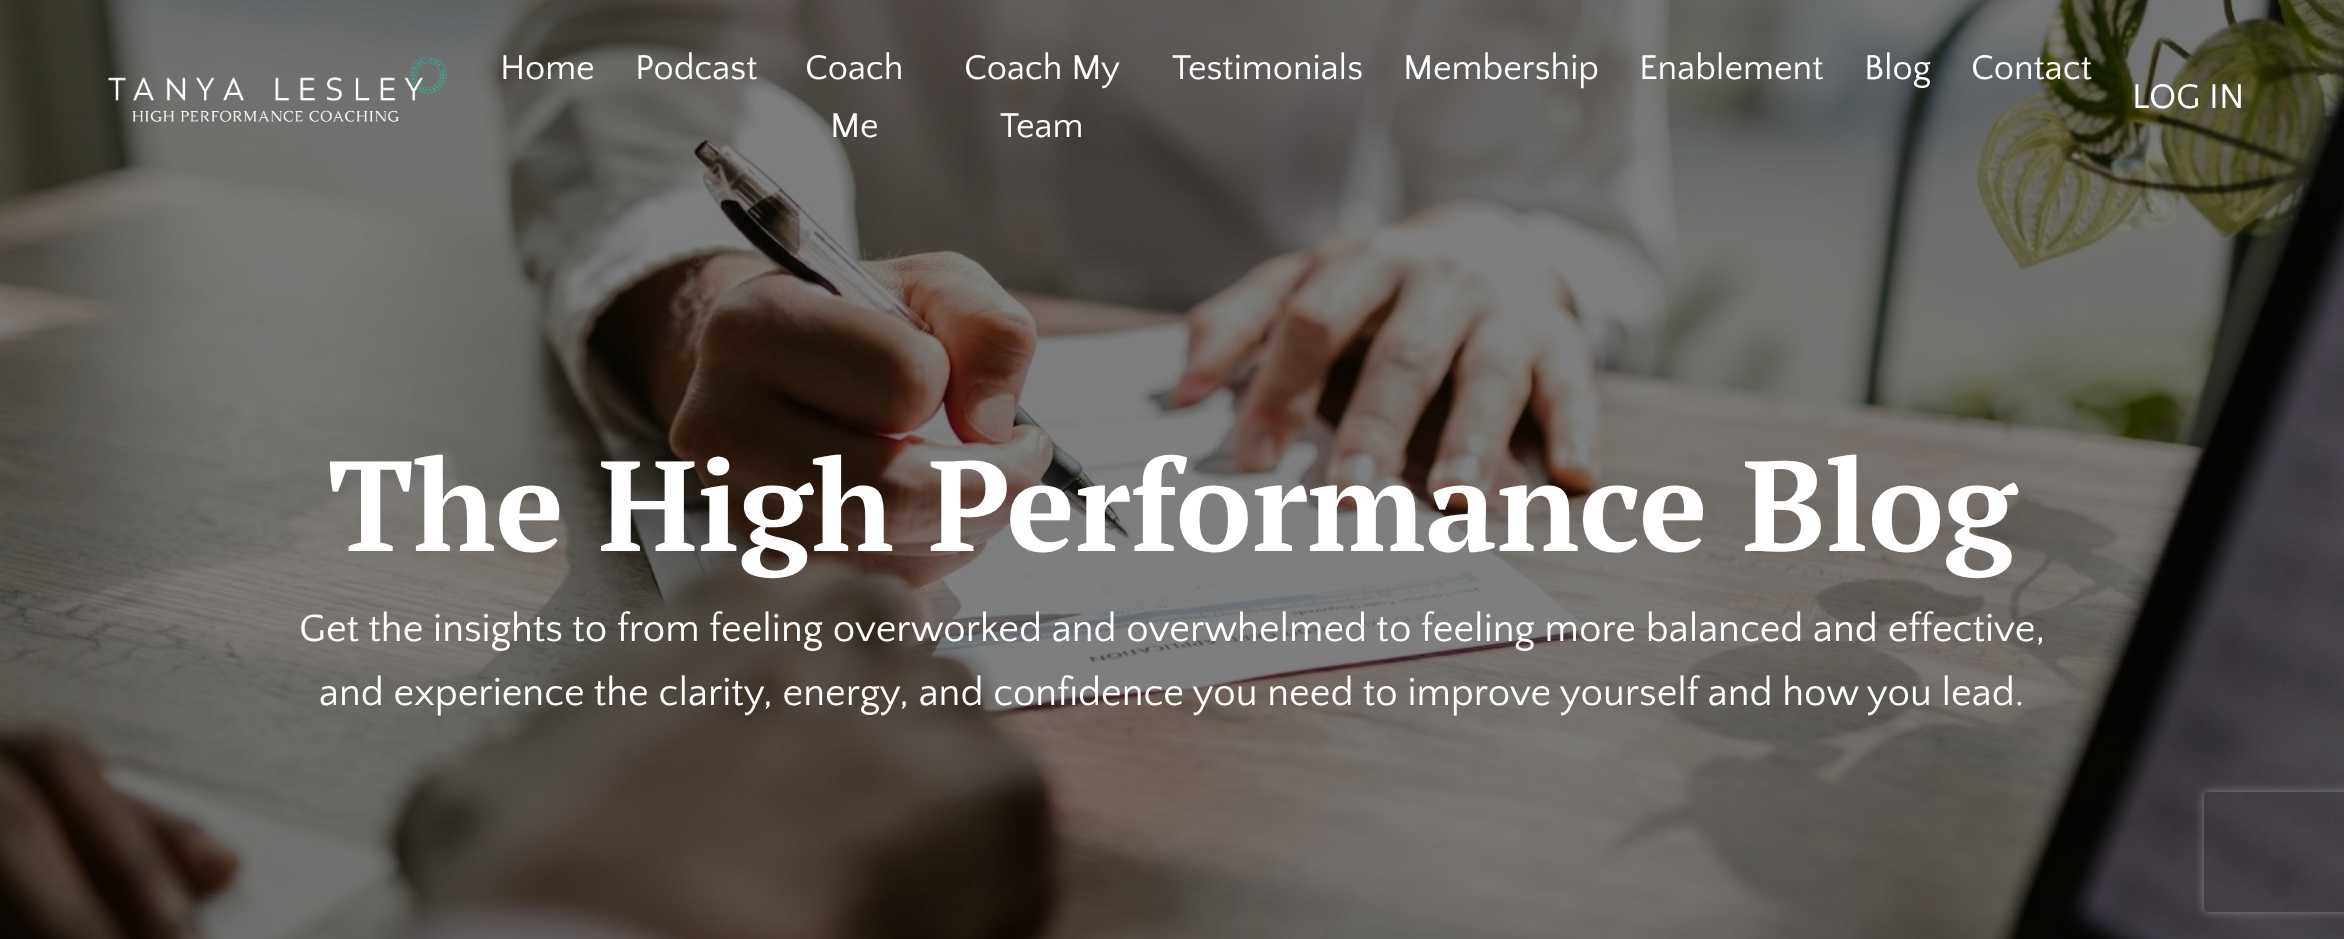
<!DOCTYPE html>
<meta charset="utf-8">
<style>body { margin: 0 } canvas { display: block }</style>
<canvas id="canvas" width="2344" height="939"></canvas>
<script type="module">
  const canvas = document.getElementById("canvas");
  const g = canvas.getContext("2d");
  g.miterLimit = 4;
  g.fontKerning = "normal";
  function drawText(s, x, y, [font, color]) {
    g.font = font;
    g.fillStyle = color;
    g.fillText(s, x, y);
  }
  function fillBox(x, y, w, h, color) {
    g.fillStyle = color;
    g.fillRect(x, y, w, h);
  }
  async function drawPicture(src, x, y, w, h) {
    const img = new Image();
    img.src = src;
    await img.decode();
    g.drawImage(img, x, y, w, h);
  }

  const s1 = ["36px Quattrocento Sans", "#FFFFFF"];
  const s2 = ["bold 128px PT Serif", "#FFFFFF"];
  const s3 = ["40px Quattrocento Sans", "#FFFFFF"];

  fillBox(0, 0, 2344, 939, "#FFFFFF");
  await drawPicture("pic2.png", 0, 0, 2344, 939);
  await drawPicture("pic1.png", 108, 57, 339, 65);
  drawText("Home", 500, 79, s1);
  drawText("Podcast", 635, 79, s1);
  drawText("Coach", 805, 79, s1);
  drawText("Me", 830, 137, s1);
  drawText("Coach My", 964, 79, s1);
  drawText("Team", 1000, 137, s1);
  drawText("Testimonials", 1172, 79, s1);
  drawText("Membership", 1403, 79, s1);
  drawText("Enablement", 1639, 79, s1);
  drawText("Blog", 1864, 79, s1);
  drawText("Contact", 1971, 79, s1);
  drawText("LOG IN", 2132, 108, s1);
  drawText("The High Performance Blog", 328, 551, s2);
  drawText("Get the insights to from feeling overworked and overwhelmed to feeling more balanced and effective,", 299, 641, s3);
  drawText("and experience the clarity, energy, and confidence you need to improve yourself and how you lead.", 319, 705, s3);
  g.save();
  g.beginPath();
  g.moveTo(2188, 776);
  g.lineTo(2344, 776);
  g.lineTo(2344, 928);
  g.lineTo(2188, 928);
  g.closePath();
  g.moveTo(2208, 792);
  g.lineTo(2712, 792);
  g.bezierCurveTo(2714, 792, 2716, 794, 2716, 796);
  g.lineTo(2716, 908);
  g.bezierCurveTo(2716, 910, 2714, 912, 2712, 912);
  g.lineTo(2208, 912);
  g.bezierCurveTo(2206, 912, 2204, 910, 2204, 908);
  g.lineTo(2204, 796);
  g.bezierCurveTo(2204, 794, 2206, 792, 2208, 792);
  g.closePath();
  g.clip("evenodd");
  g.fillStyle = "#808080";
  g.filter = "blur(5px)";
  g.beginPath();
  g.roundRect(2204, 792, 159, 120, 4);
  g.fill();
  g.filter = "none";
  g.restore();
</script>
